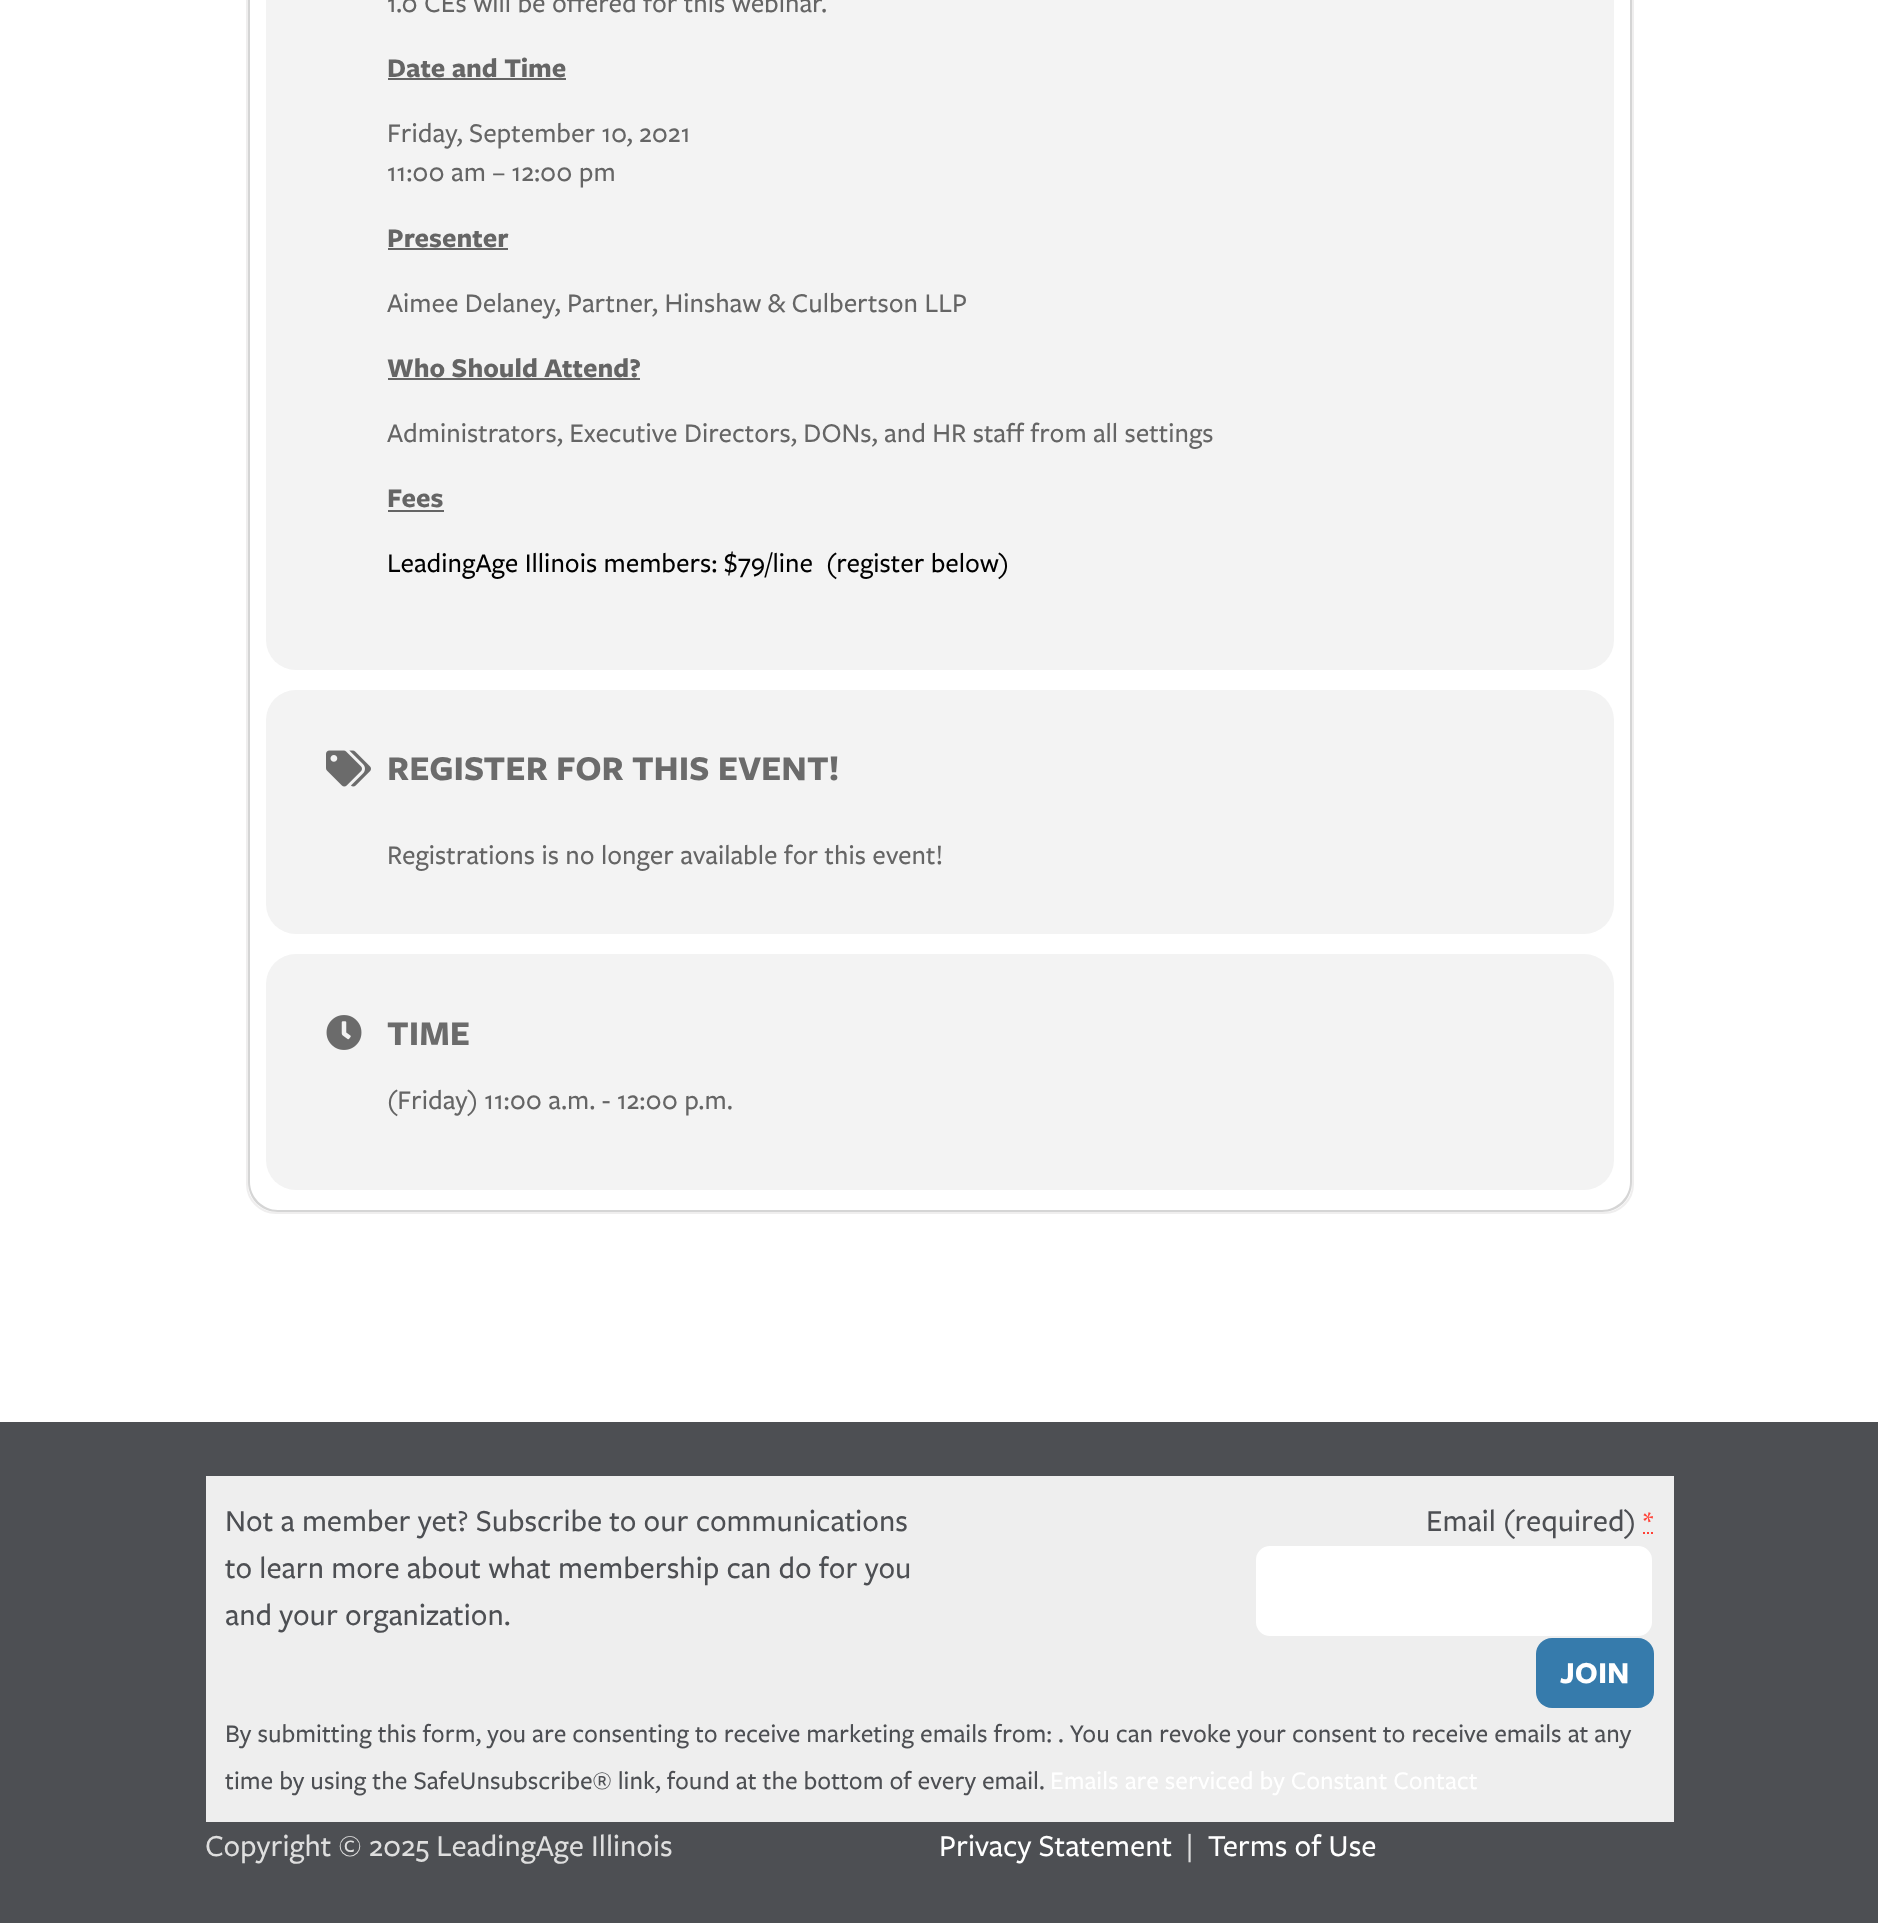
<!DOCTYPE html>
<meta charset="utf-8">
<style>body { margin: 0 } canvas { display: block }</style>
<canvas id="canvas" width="1878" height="1923"></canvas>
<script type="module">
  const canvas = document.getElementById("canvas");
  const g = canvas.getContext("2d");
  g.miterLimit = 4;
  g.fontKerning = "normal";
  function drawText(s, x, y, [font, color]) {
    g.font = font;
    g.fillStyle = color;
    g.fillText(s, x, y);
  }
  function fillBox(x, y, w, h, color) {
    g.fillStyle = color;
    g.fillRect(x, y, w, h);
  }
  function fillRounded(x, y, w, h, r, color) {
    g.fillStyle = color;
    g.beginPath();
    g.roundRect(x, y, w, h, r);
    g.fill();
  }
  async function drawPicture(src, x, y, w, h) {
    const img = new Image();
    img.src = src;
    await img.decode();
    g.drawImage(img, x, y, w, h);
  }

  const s1 = ["500 28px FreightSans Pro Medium", "#656565"];
  const s2 = ["bold 28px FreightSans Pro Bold", "#656565"];
  const s3 = ["500 28px FreightSans Pro Medium", "#000000"];
  const s4 = ["bold 36px FreightSans Pro Bold", "#6B6B6B"];
  const s5 = ["500 31.5px FreightSans Pro Medium", "#4D4F53"];
  const s6 = ["500 29px FreightSans Pro Medium", "#FF4136"];
  const s7 = ["bold 31.5px FreightSans Pro Bold", "#FFFFFF"];
  const s8 = ["500 26.25px FreightSans Pro Medium", "#4D4F53"];
  const s9 = ["500 26.25px FreightSans Pro Medium", "#FFFFFF"];
  const s10 = ["500 31.5px FreightSans Pro Medium", "#DEDEDE"];
  const s11 = ["500 31.5px FreightSans Pro Medium", "#FFFFFF"];

  fillBox(0, 0, 1878, 1923, "#FFFFFF");
  g.beginPath();
  g.roundRect(247, -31, 1386, 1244, 29);
  g.strokeStyle = "#EFEEEE";
  g.lineWidth = 2;
  g.stroke();
  g.fillStyle = "#D5D5D5";
  g.beginPath();
  g.moveTo(248, -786);
  g.lineTo(1632, -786);
  g.lineTo(1632, 1182);
  g.bezierCurveTo(1632, 1199, 1619, 1212, 1602, 1212);
  g.lineTo(278, 1212);
  g.bezierCurveTo(261, 1212, 248, 1199, 248, 1182);
  g.closePath();
  g.moveTo(250, -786);
  g.lineTo(1630, -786);
  g.lineTo(1630, 1182);
  g.bezierCurveTo(1630, 1197, 1617, 1210, 1602, 1210);
  g.lineTo(278, 1210);
  g.bezierCurveTo(263, 1210, 250, 1197, 250, 1182);
  g.closePath();
  g.fill("evenodd");
  fillRounded(266, -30, 1348, 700, 30, "#F3F3F3");
  drawText("1.0 CEs will be offered for this webinar.", 387, 12, s1);
  drawText("Date and Time", 387, 77, s2);
  fillBox(388, 78, 178, 2, "#656565");
  drawText("Friday, September 10, 2021", 387, 142, s1);
  drawText("11:00 am – 12:00 pm", 387, 181, s1);
  drawText("Presenter", 387, 247, s2);
  fillBox(388, 248, 120, 2, "#656565");
  drawText("Aimee Delaney, Partner, Hinshaw & Culbertson LLP", 387, 312, s1);
  drawText("Who Should Attend?", 387, 377, s2);
  fillBox(388, 378, 252, 2, "#656565");
  drawText("Administrators, Executive Directors, DONs, and HR staff from all settings", 387, 442, s1);
  drawText("Fees", 387, 507, s2);
  fillBox(388, 510, 56, 2, "#656565");
  drawText("LeadingAge Illinois members: $79/line", 387, 572, s3);
  drawText("(register below)", 826, 572, s3);
  fillRounded(266, 690, 1348, 244, 30, "#F3F3F3");
  await drawPicture("pic1.png", 326, 750, 45, 37);
  drawText("REGISTER FOR THIS EVENT!", 387, 780, s4);
  drawText("Registrations is no longer available for this event!", 387, 864, s1);
  fillRounded(266, 954, 1348, 236, 30, "#F3F3F3");
  await drawPicture("pic2.png", 326, 1015, 36, 35);
  drawText("TIME", 387, 1045, s4);
  drawText("(Friday) 11:00 a.m. - 12:00 p.m.", 387, 1109, s1);
  fillBox(0, 1422, 1878, 501, "#4D4F53");
  fillBox(206, 1476, 1468, 346, "#EEEEEE");
  drawText("Not a member yet? Subscribe to our communications", 225, 1531, s5);
  drawText("to learn more about what membership can do for you", 225, 1578, s5);
  drawText("and your organization.", 225, 1625, s5);
  drawText("Email (required)", 1426, 1531, s5);
  drawText("*", 1643, 1531, s6);
  g.beginPath();
  g.moveTo(1643, 1533);
  g.lineTo(1645, 1533);
  g.moveTo(1647, 1533);
  g.lineTo(1649, 1533);
  g.moveTo(1651, 1533);
  g.lineTo(1653, 1533);
  g.strokeStyle = "#FF4136";
  g.stroke();
  g.fillStyle = "#FFFFFF";
  g.beginPath();
  g.roundRect(1255, 1545, 398, 92, 15);
  g.fill();
  g.strokeStyle = "#EEEEEE";
  g.stroke();
  fillRounded(1536, 1638, 118, 70, 16, "#367BAC");
  drawText("JOIN", 1560, 1683, s7);
  drawText("By submitting this form, you are consenting to receive marketing emails from: . You can revoke your consent to receive emails at any", 225, 1742, s8);
  drawText("time by using the SafeUnsubscribe® link, found at the bottom of every email.", 225, 1789, s8);
  drawText("Emails are serviced by Constant Contact", 1050, 1789, s9);
  drawText("Copyright © 2025 LeadingAge Illinois", 205, 1856, s10);
  drawText("Privacy Statement", 939, 1856, s11);
  drawText("|", 1186, 1856, s10);
  drawText("Terms of Use", 1208, 1856, s11);
</script>
